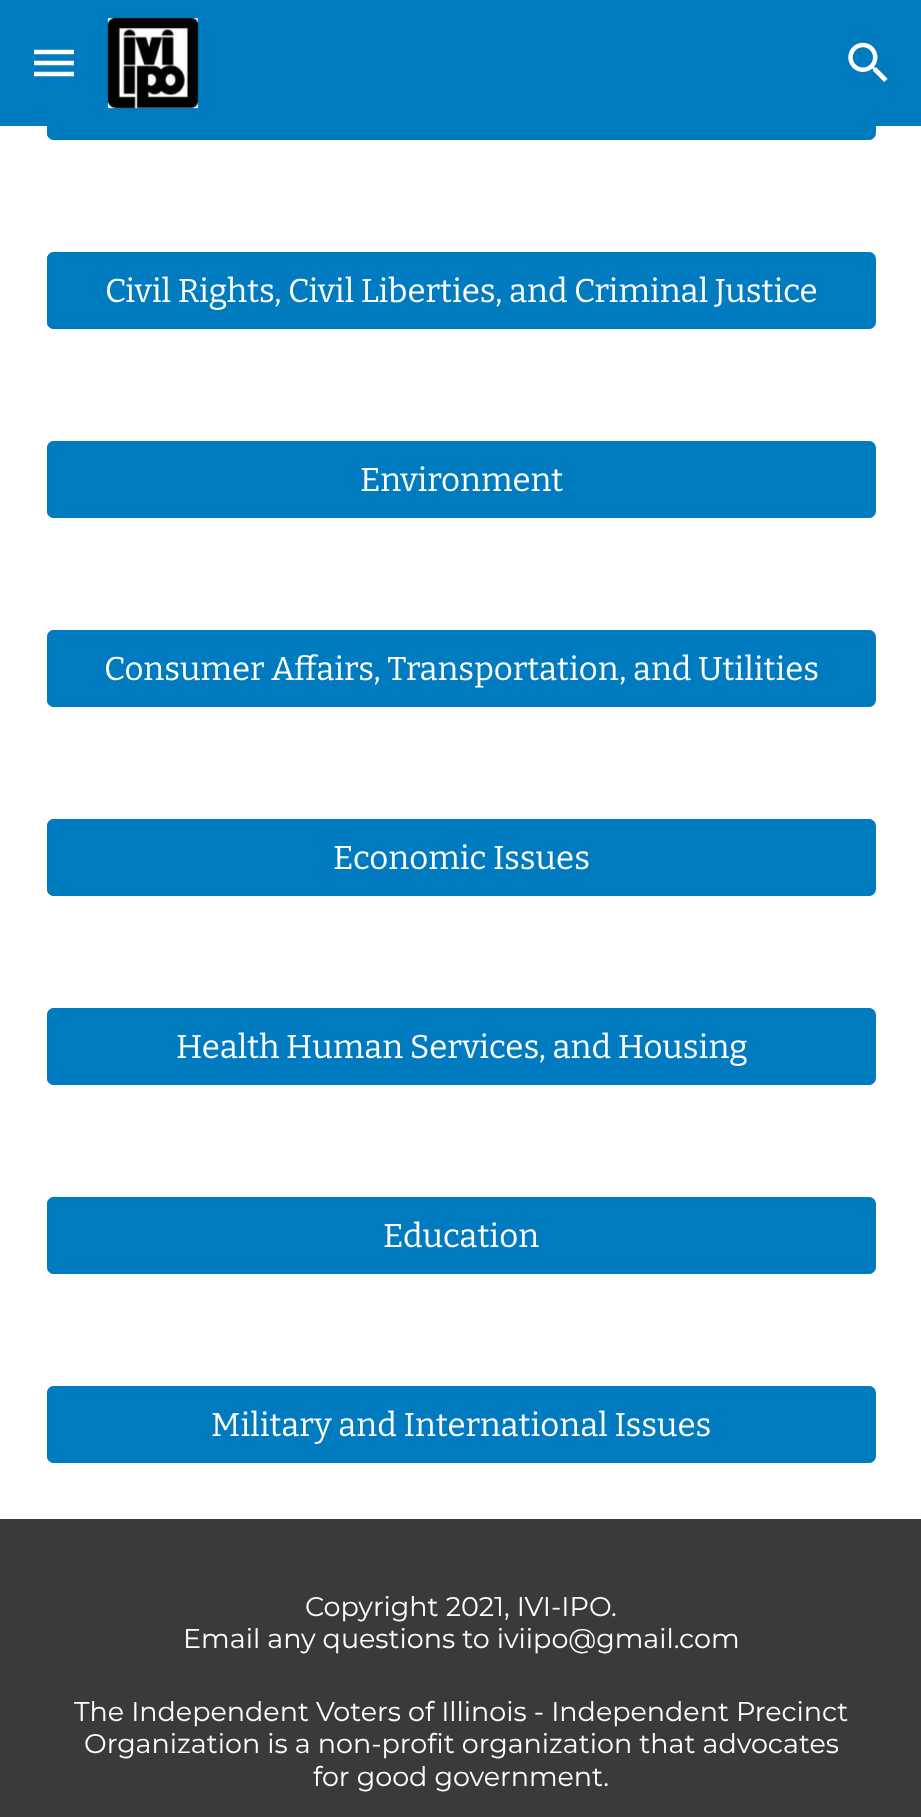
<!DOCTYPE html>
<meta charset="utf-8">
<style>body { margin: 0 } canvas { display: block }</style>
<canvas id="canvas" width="921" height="1817"></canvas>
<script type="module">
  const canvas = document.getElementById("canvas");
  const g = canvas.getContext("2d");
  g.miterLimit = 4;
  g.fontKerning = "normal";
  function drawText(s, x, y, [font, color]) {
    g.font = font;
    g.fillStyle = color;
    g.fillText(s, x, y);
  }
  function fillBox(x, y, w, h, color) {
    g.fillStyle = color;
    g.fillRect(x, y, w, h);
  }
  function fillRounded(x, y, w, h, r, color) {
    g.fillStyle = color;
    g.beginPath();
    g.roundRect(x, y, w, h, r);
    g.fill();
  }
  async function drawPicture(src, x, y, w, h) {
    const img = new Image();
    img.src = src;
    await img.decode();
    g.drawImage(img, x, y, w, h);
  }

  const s1 = ["33px Bitter", "#FFFFFF"];
  const s2 = ["27px Montserrat", "#FFFFFF"];

  fillBox(0, 0, 921, 1817, "#FFFFFF");
  g.fillStyle = "#007BBF";
  g.beginPath();
  g.roundRect(46, 62, 831, 79, 8);
  g.fill();
  g.strokeStyle = "#FFFFFF";
  g.lineWidth = 2;
  g.stroke();
  fillRounded(47, 63, 828, 77, 7, "#007BBF");
  fillBox(0, 0, 921, 126, "#007BBF");
  await drawPicture("pic1.png", 107, 17, 92, 92);
  await drawPicture("pic2.png", 848, 42, 40, 40);
  g.beginPath();
  g.moveTo(34, 52);
  g.lineTo(74, 52);
  g.moveTo(34, 63);
  g.lineTo(74, 63);
  g.moveTo(34, 74);
  g.lineTo(74, 74);
  g.lineWidth = 4.5;
  g.stroke();
  g.beginPath();
  g.roundRect(46, 251, 831, 79, 8);
  g.fill();
  g.lineWidth = 2;
  g.stroke();
  fillRounded(47, 252, 828, 77, 7, "#007BBF");
  drawText("Civil Rights, Civil Liberties, and Criminal Justice", 105, 302, s1);
  g.fillStyle = "#007BBF";
  g.beginPath();
  g.roundRect(46, 440, 831, 79, 8);
  g.fill();
  g.stroke();
  fillRounded(47, 441, 828, 77, 7, "#007BBF");
  drawText("Environment", 360, 491, s1);
  g.fillStyle = "#007BBF";
  g.beginPath();
  g.roundRect(46, 629, 831, 79, 8);
  g.fill();
  g.stroke();
  fillRounded(47, 630, 828, 77, 7, "#007BBF");
  drawText("Consumer Affairs, Transportation, and Utilities", 104, 680, s1);
  g.fillStyle = "#007BBF";
  g.beginPath();
  g.roundRect(46, 818, 831, 79, 8);
  g.fill();
  g.stroke();
  fillRounded(47, 819, 828, 77, 7, "#007BBF");
  drawText("Economic Issues", 333, 869, s1);
  g.fillStyle = "#007BBF";
  g.beginPath();
  g.roundRect(46, 1007, 831, 79, 8);
  g.fill();
  g.stroke();
  fillRounded(47, 1008, 828, 77, 7, "#007BBF");
  drawText("Health Human Services, and Housing", 176, 1058, s1);
  g.fillStyle = "#007BBF";
  g.beginPath();
  g.roundRect(46, 1196, 831, 79, 8);
  g.fill();
  g.stroke();
  fillRounded(47, 1197, 828, 77, 7, "#007BBF");
  drawText("Education", 383, 1247, s1);
  g.fillStyle = "#007BBF";
  g.beginPath();
  g.roundRect(46, 1385, 831, 79, 8);
  g.fill();
  g.stroke();
  fillRounded(47, 1386, 828, 77, 7, "#007BBF");
  drawText("Military and International Issues", 211, 1436, s1);
  fillBox(0, 1519, 921, 298, "#3A3A3A");
  drawText("Copyright 2021, IVI-IPO.", 305, 1616, s2);
  drawText("Email any questions to iviipo@gmail.com", 183, 1648, s2);
  drawText("The Independent Voters of Illinois - Independent Precinct", 74, 1721, s2);
  drawText("Organization is a non-profit organization that advocates", 84, 1753, s2);
  drawText("for good government.", 313, 1786, s2);
</script>
